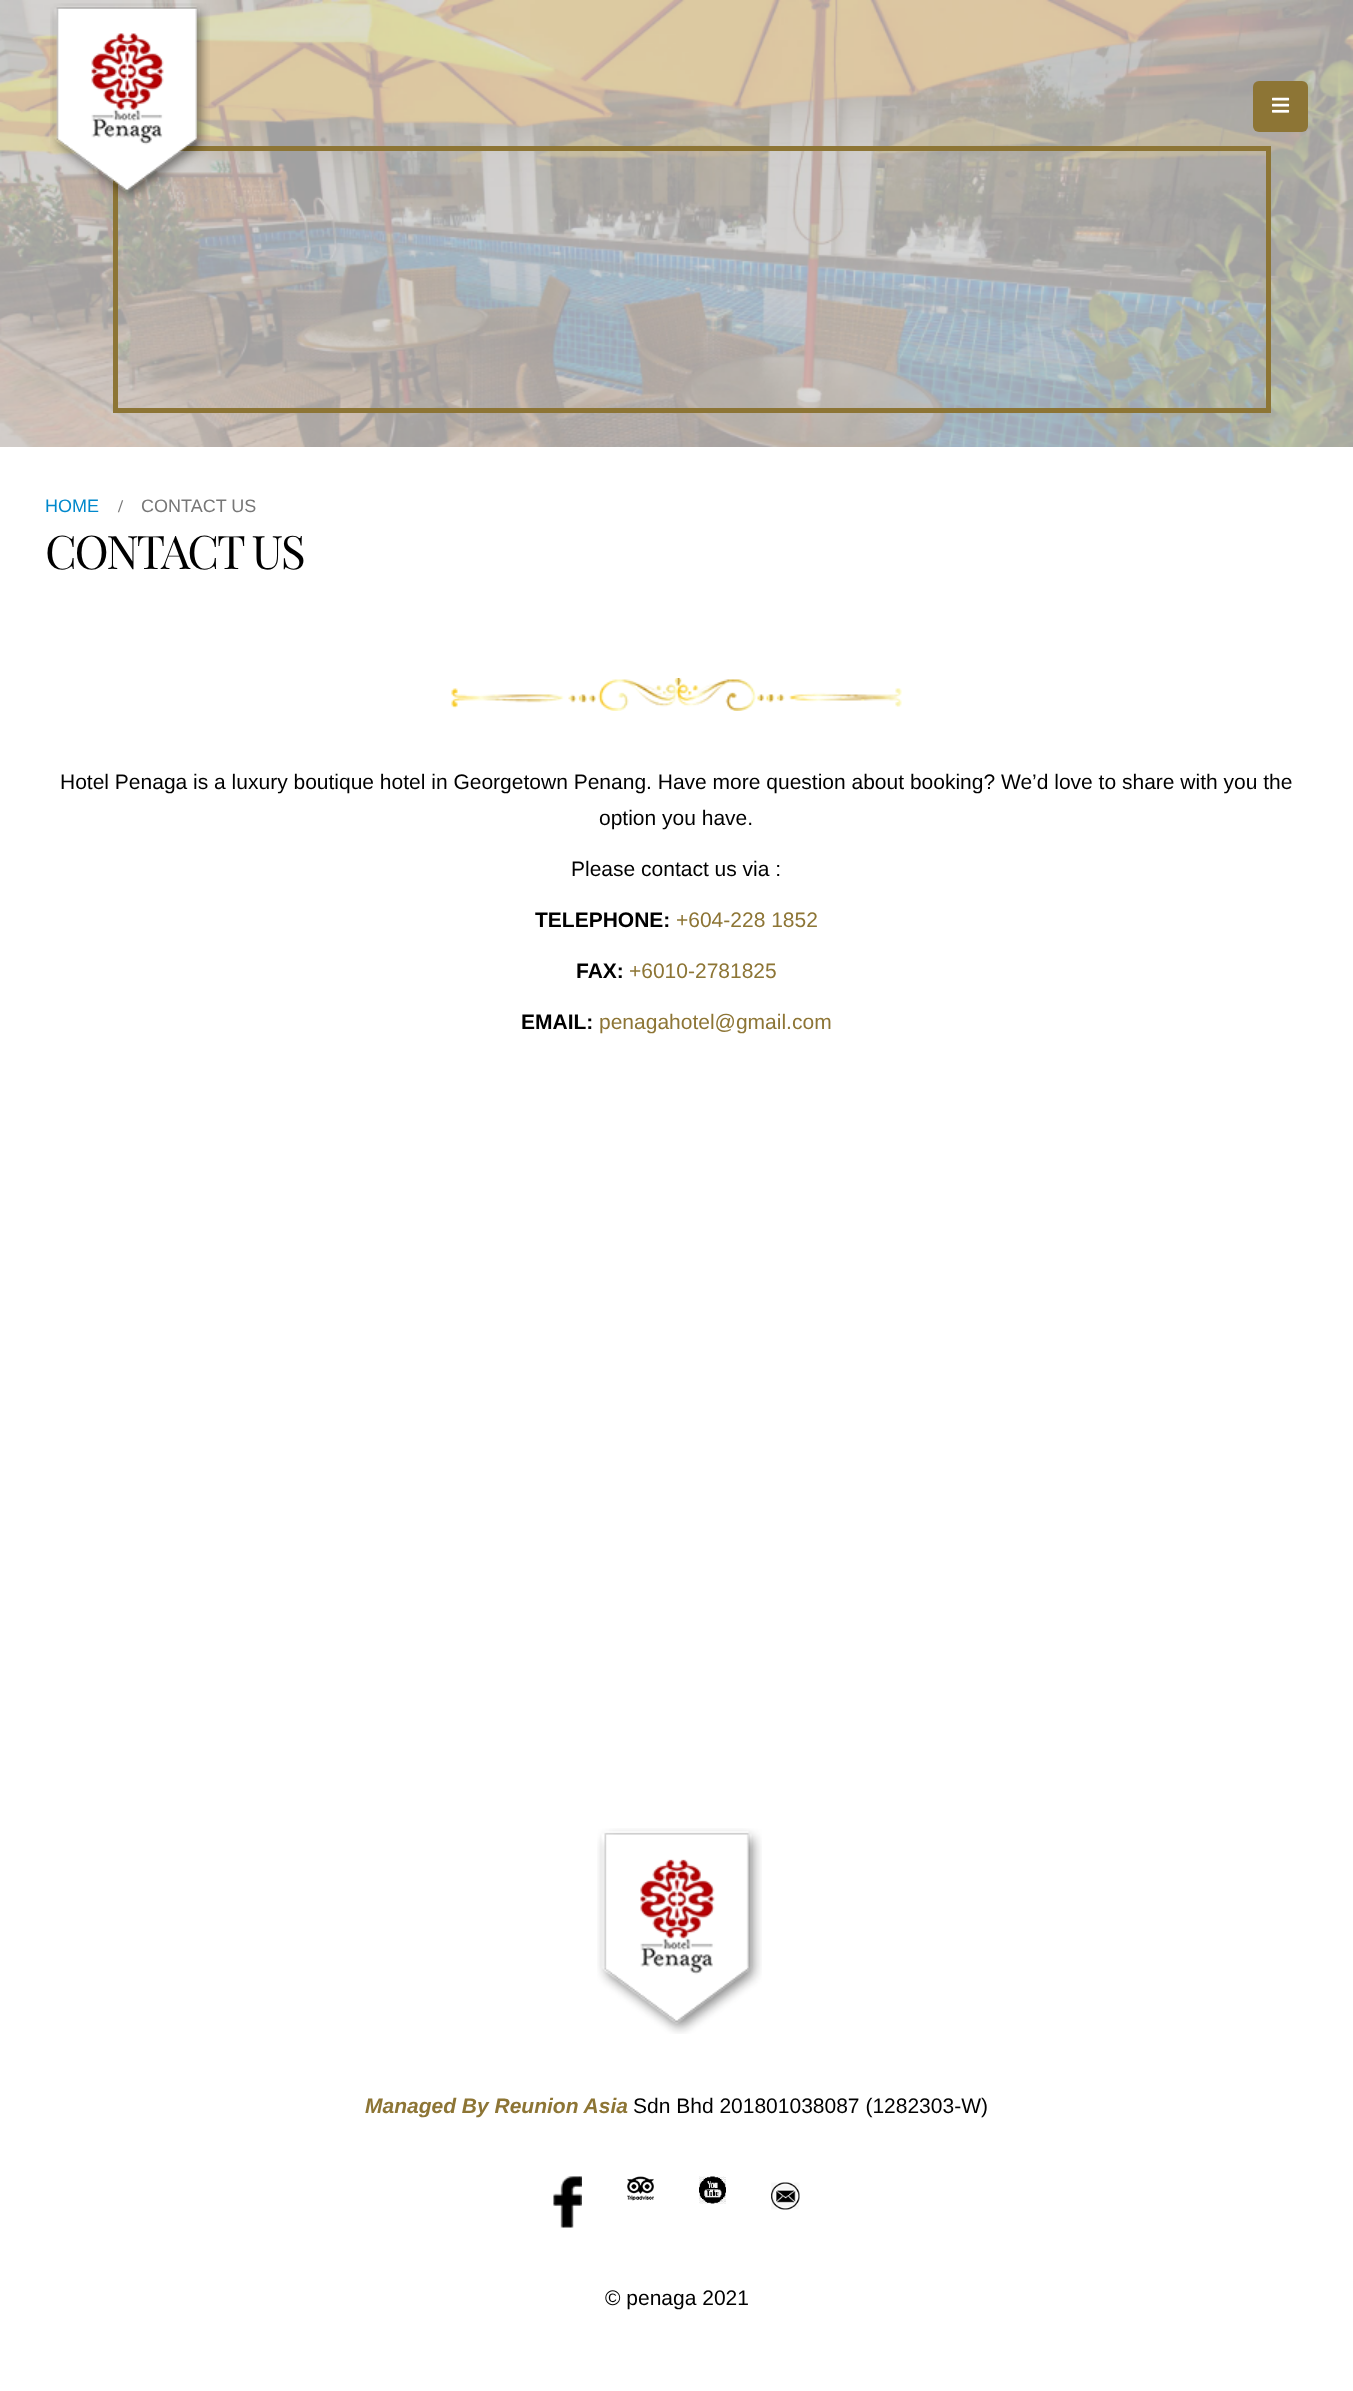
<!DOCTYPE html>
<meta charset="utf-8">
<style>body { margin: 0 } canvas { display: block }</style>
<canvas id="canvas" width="1353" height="2391"></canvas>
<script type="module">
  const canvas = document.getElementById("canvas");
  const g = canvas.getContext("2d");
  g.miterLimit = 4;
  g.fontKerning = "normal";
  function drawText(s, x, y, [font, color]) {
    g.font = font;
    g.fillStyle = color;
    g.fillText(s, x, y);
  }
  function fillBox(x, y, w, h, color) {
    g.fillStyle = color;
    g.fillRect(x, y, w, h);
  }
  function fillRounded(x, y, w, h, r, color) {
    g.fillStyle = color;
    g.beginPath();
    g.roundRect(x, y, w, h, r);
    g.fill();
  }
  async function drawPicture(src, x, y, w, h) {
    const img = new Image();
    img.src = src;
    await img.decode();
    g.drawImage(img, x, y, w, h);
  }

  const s1 = ["18px Liberation Sans", "#0088CC"];
  const s2 = ["bold 18px Liberation Serif", "#777777"];
  const s3 = ["18px Liberation Sans", "#777777"];
  const s4 = ["46.25px Playfair Display", "#000000"];
  const s5 = ["21px Liberation Sans", "#000000"];
  const s6 = ["bold 21px Liberation Sans", "#000000"];
  const s7 = ["21px Liberation Sans", "#8D7535"];
  const s8 = ["italic bold 21px Liberation Sans", "#8D7535"];

  fillBox(0, 0, 1353, 2391, "#FFFFFF");
  await drawPicture("pic1.png", 0, 0, 1353, 447);
  g.strokeStyle = "#8D7535";
  g.lineWidth = 5;
  g.strokeRect(115.5, 148.5, 1153, 262);
  await drawPicture("pic2.png", 50, 3, 160, 200);
  fillRounded(1253, 81, 55, 51, 6, "#8D7535");
  await drawPicture("pic3.png", 1272, 97, 18, 16);
  drawText("HOME", 45, 512, s1);
  drawText("/", 118, 512, s2);
  drawText("CONTACT US", 141, 512, s3);
  g.letterSpacing = "-2.25px";
  drawText("CONTACT US", 45, 569, s4);
  await drawPicture("pic4.png", 451, 678, 451, 33);
  g.letterSpacing = "0px";
  drawText("Hotel Penaga is a luxury boutique hotel in Georgetown Penang. Have more question about booking? We’d love to share with you the", 60, 789, s5);
  drawText("option you have.", 599, 825, s5);
  drawText("Please contact us via :", 571, 876, s5);
  drawText("TELEPHONE:", 535, 927, s6);
  drawText("+604-228 1852", 676, 927, s7);
  drawText("FAX:", 576, 978, s6);
  drawText("+6010-2781825", 629, 978, s7);
  drawText("EMAIL:", 521, 1029, s6);
  drawText("penagahotel@gmail.com", 599, 1029, s7);
  await drawPicture("pic5.png", 597, 1828, 165, 206);
  drawText("Managed By Reunion Asia", 365, 2113, s8);
  drawText("Sdn Bhd 201801038087 (1282303-W)", 633, 2113, s5);
  await drawPicture("pic6.png", 553, 2176, 29, 52);
  await drawPicture("pic7.png", 627, 2176, 27, 25);
  await drawPicture("pic8.png", 699, 2176, 27, 28);
  await drawPicture("pic9.png", 771, 2182, 29, 28);
  drawText("© penaga 2021", 605, 2305, s5);
</script>
